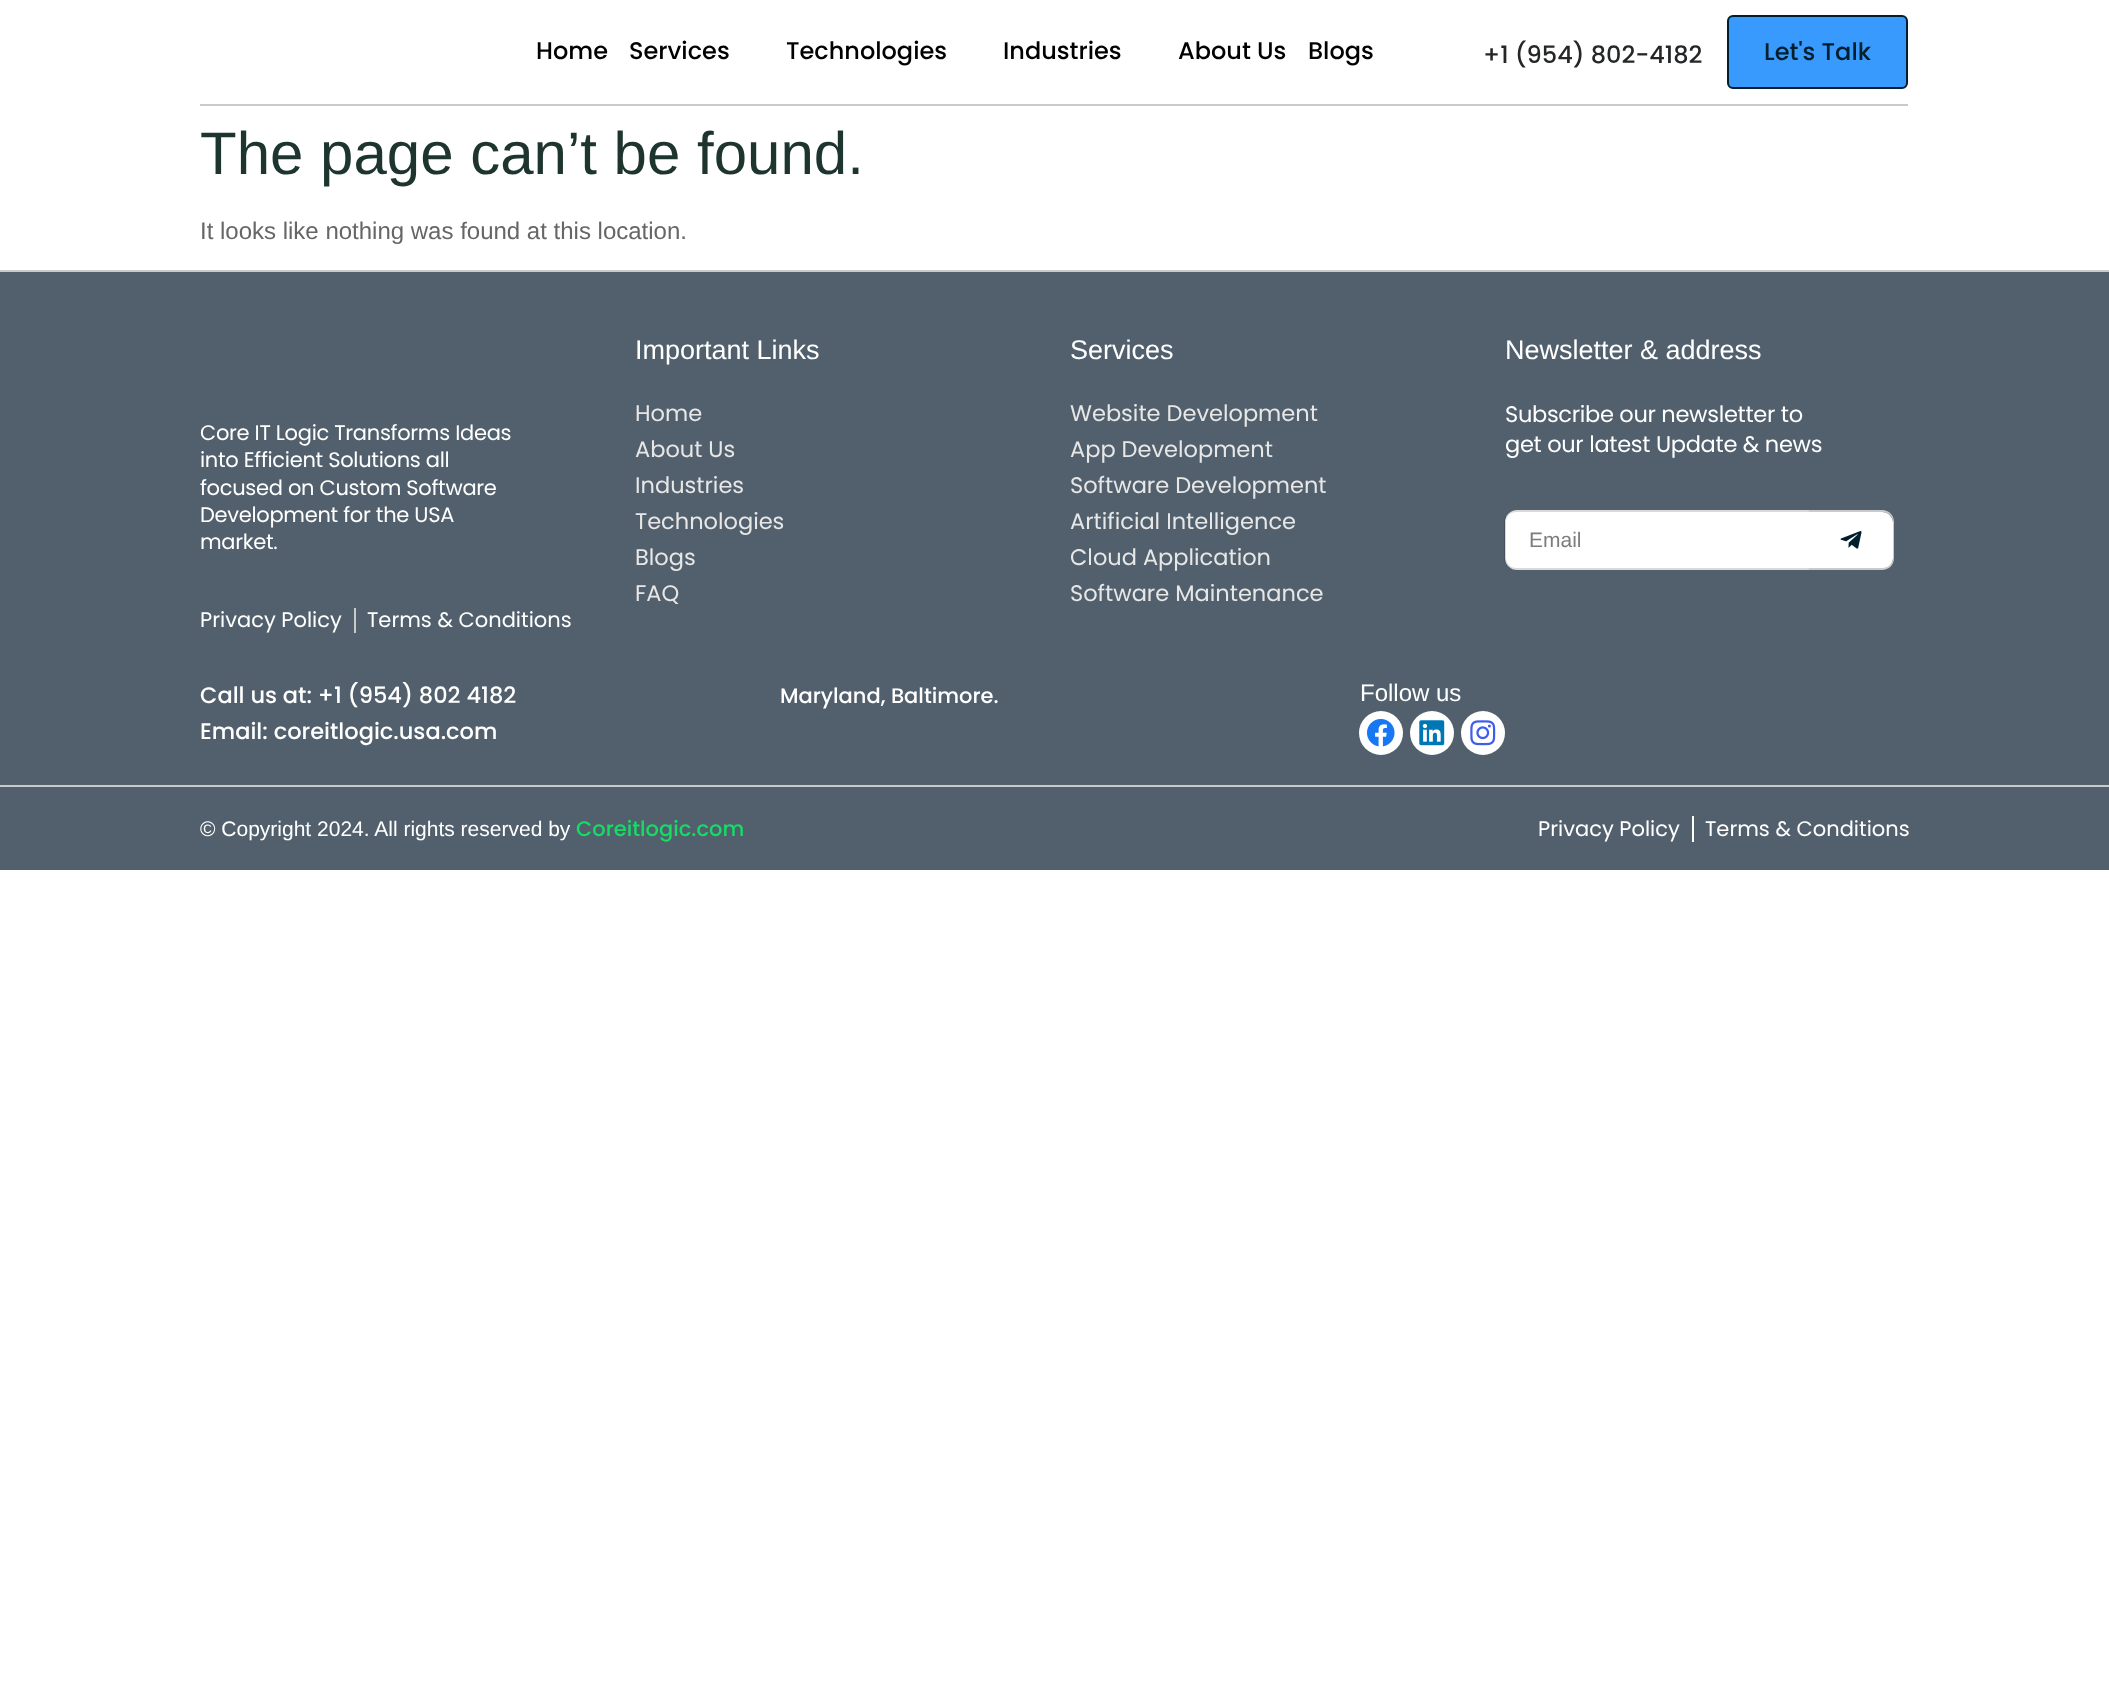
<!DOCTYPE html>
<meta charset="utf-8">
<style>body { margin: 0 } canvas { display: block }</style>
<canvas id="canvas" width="2109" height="1704"></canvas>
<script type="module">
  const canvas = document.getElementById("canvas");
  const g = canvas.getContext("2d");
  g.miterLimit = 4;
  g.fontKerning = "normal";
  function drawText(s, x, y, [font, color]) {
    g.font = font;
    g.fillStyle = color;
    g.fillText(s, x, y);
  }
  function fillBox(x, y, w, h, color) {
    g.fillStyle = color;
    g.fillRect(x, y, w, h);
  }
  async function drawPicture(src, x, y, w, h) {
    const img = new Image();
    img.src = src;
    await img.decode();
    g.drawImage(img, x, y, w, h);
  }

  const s1 = ["500 24px Poppins", "#000000"];
  const s2 = ["500 24px Poppins", "#242627"];
  const s3 = ["500 24px Poppins", "#001E2B"];
  const s4 = ["60px Liberation Sans", "#1E352F"];
  const s5 = ["24px Liberation Sans", "#666666"];
  const s6 = ["21px Poppins", "#FFFFFF"];
  const s7 = ["27px Liberation Sans", "#FFFFFF"];
  const s8 = ["22.5px Poppins", "#E7E7E7"];
  const s9 = ["22.5px Poppins", "#FFFFFF"];
  const s10 = ["21px Liberation Sans", "#7C7D7D"];
  const s11 = ["500 22.5px Poppins", "#FFFFFF"];
  const s12 = ["500 21px Poppins", "#FFFFFF"];
  const s13 = ["24px Liberation Sans", "#FFFFFF"];
  const s14 = ["21px Liberation Sans", "#FFFFFF"];
  const s15 = ["500 21px Poppins", "#16DB65"];

  fillBox(0, 0, 2109, 1704, "#FFFFFF");
  drawText("Home", 536, 59, s1);
  drawText("Services", 629, 59, s1);
  drawText("Technologies", 786, 59, s1);
  drawText("Industries", 1003, 59, s1);
  drawText("About Us", 1178, 59, s1);
  drawText("Blogs", 1308, 59, s1);
  drawText("+1 (954) 802-4182", 1483, 63, s2);
  g.fillStyle = "#389AFD";
  g.beginPath();
  g.roundRect(1728, 16, 179, 72, 5);
  g.fill();
  g.strokeStyle = "#001E2B";
  g.lineWidth = 2;
  g.stroke();
  drawText("Let's Talk", 1764, 60, s3);
  fillBox(200, 104, 1708, 2, "#CACACC");
  drawText("The page can’t be found.", 200, 174, s4);
  drawText("It looks like nothing was found at this location.", 200, 239, s5);
  fillBox(0, 272, 2109, 513, "#52606D");
  fillBox(0, 270, 2109, 2, "#CACACA");
  g.letterSpacing = "-0.3px";
  drawText("Core IT Logic Transforms Ideas", 200, 440, s6);
  drawText("into Efficient Solutions all", 200, 467, s6);
  drawText("focused on Custom Software", 200, 495, s6);
  drawText("Development for the USA", 200, 522, s6);
  drawText("market.", 200, 549, s6);
  g.letterSpacing = "0px";
  drawText("Privacy Policy", 200, 627, s6);
  fillBox(354, 608, 2, 25, "#CACACA");
  drawText("Terms & Conditions", 367, 627, s6);
  drawText("Important Links", 635, 359, s7);
  drawText("Home", 635, 421, s8);
  drawText("About Us", 635, 457, s8);
  drawText("Industries", 635, 493, s8);
  drawText("Technologies", 635, 529, s8);
  drawText("Blogs", 635, 565, s8);
  drawText("FAQ", 635, 601, s8);
  drawText("Services", 1070, 359, s7);
  drawText("Website Development", 1070, 421, s8);
  drawText("App Development", 1070, 457, s8);
  drawText("Software Development", 1070, 493, s8);
  drawText("Artificial Intelligence", 1070, 529, s8);
  drawText("Cloud Application", 1070, 565, s8);
  drawText("Software Maintenance", 1070, 601, s8);
  drawText("Newsletter & address", 1505, 359, s7);
  g.letterSpacing = "-0.3px";
  drawText("Subscribe our newsletter to", 1505, 422, s9);
  drawText("get our latest Update & news", 1505, 452, s9);
  g.beginPath();
  g.roundRect(1505, 510, 304, 60, [12, 0, 0, 12]);
  g.fill();
  g.fillStyle = "rgba(0, 0, 0, 0.15)";
  g.beginPath();
  g.moveTo(1516, 510);
  g.lineTo(1809, 510);
  g.lineTo(1809, 570);
  g.lineTo(1516, 570);
  g.bezierCurveTo(1510, 570, 1504, 565, 1504, 558);
  g.lineTo(1504, 522);
  g.bezierCurveTo(1504, 515, 1510, 510, 1516, 510);
  g.closePath();
  g.moveTo(1516, 512);
  g.lineTo(1809, 512);
  g.lineTo(1809, 568);
  g.lineTo(1516, 568);
  g.bezierCurveTo(1511, 568, 1506, 564, 1506, 558);
  g.lineTo(1506, 522);
  g.bezierCurveTo(1506, 516, 1511, 512, 1516, 512);
  g.closePath();
  g.fill("evenodd");
  g.letterSpacing = "0px";
  drawText("Email", 1529, 547, s10);
  g.fillStyle = "#FFFFFF";
  g.beginPath();
  g.roundRect(1809, 512, 84, 57, [0, 11, 11, 0]);
  g.fill();
  g.fillStyle = "#CACACA";
  g.beginPath();
  g.moveTo(1809, 510);
  g.lineTo(1882, 510);
  g.bezierCurveTo(1889, 510, 1894, 515, 1894, 522);
  g.lineTo(1894, 558);
  g.bezierCurveTo(1894, 565, 1889, 570, 1882, 570);
  g.lineTo(1809, 570);
  g.closePath();
  g.moveTo(1809, 512);
  g.lineTo(1882, 512);
  g.bezierCurveTo(1888, 512, 1893, 516, 1893, 522);
  g.lineTo(1893, 558);
  g.bezierCurveTo(1893, 564, 1888, 568, 1882, 568);
  g.lineTo(1809, 568);
  g.closePath();
  g.fill("evenodd");
  await drawPicture("pic1.png", 1840, 531, 22, 18);
  drawText("Call us at: +1 (954) 802 4182", 200, 703, s11);
  drawText("Email: coreitlogic.usa.com", 200, 739, s11);
  drawText("Maryland, Baltimore.", 780, 703, s12);
  drawText("Follow us", 1360, 701, s13);
  g.beginPath();
  g.arc(1381, 733, 22, 0, Math.PI * 2);
  g.fill();
  await drawPicture("pic2.png", 1367, 719, 28, 28);
  g.beginPath();
  g.arc(1432, 733, 22, 0, Math.PI * 2);
  g.fill();
  await drawPicture("pic3.png", 1419, 720, 26, 26);
  g.beginPath();
  g.arc(1483, 733, 22, 0, Math.PI * 2);
  g.fill();
  await drawPicture("pic4.png", 1470, 720, 26, 26);
  fillBox(0, 787, 2109, 83, "#52606D");
  fillBox(0, 785, 2109, 2, "#CACACA");
  drawText("© Copyright 2024. All rights reserved by", 200, 836, s14);
  drawText("Coreitlogic.com", 576, 836, s15);
  drawText("Privacy Policy", 1538, 836, s6);
  fillBox(1692, 816, 2, 26, "#FFFFFF");
  drawText("Terms & Conditions", 1705, 836, s6);
</script>
